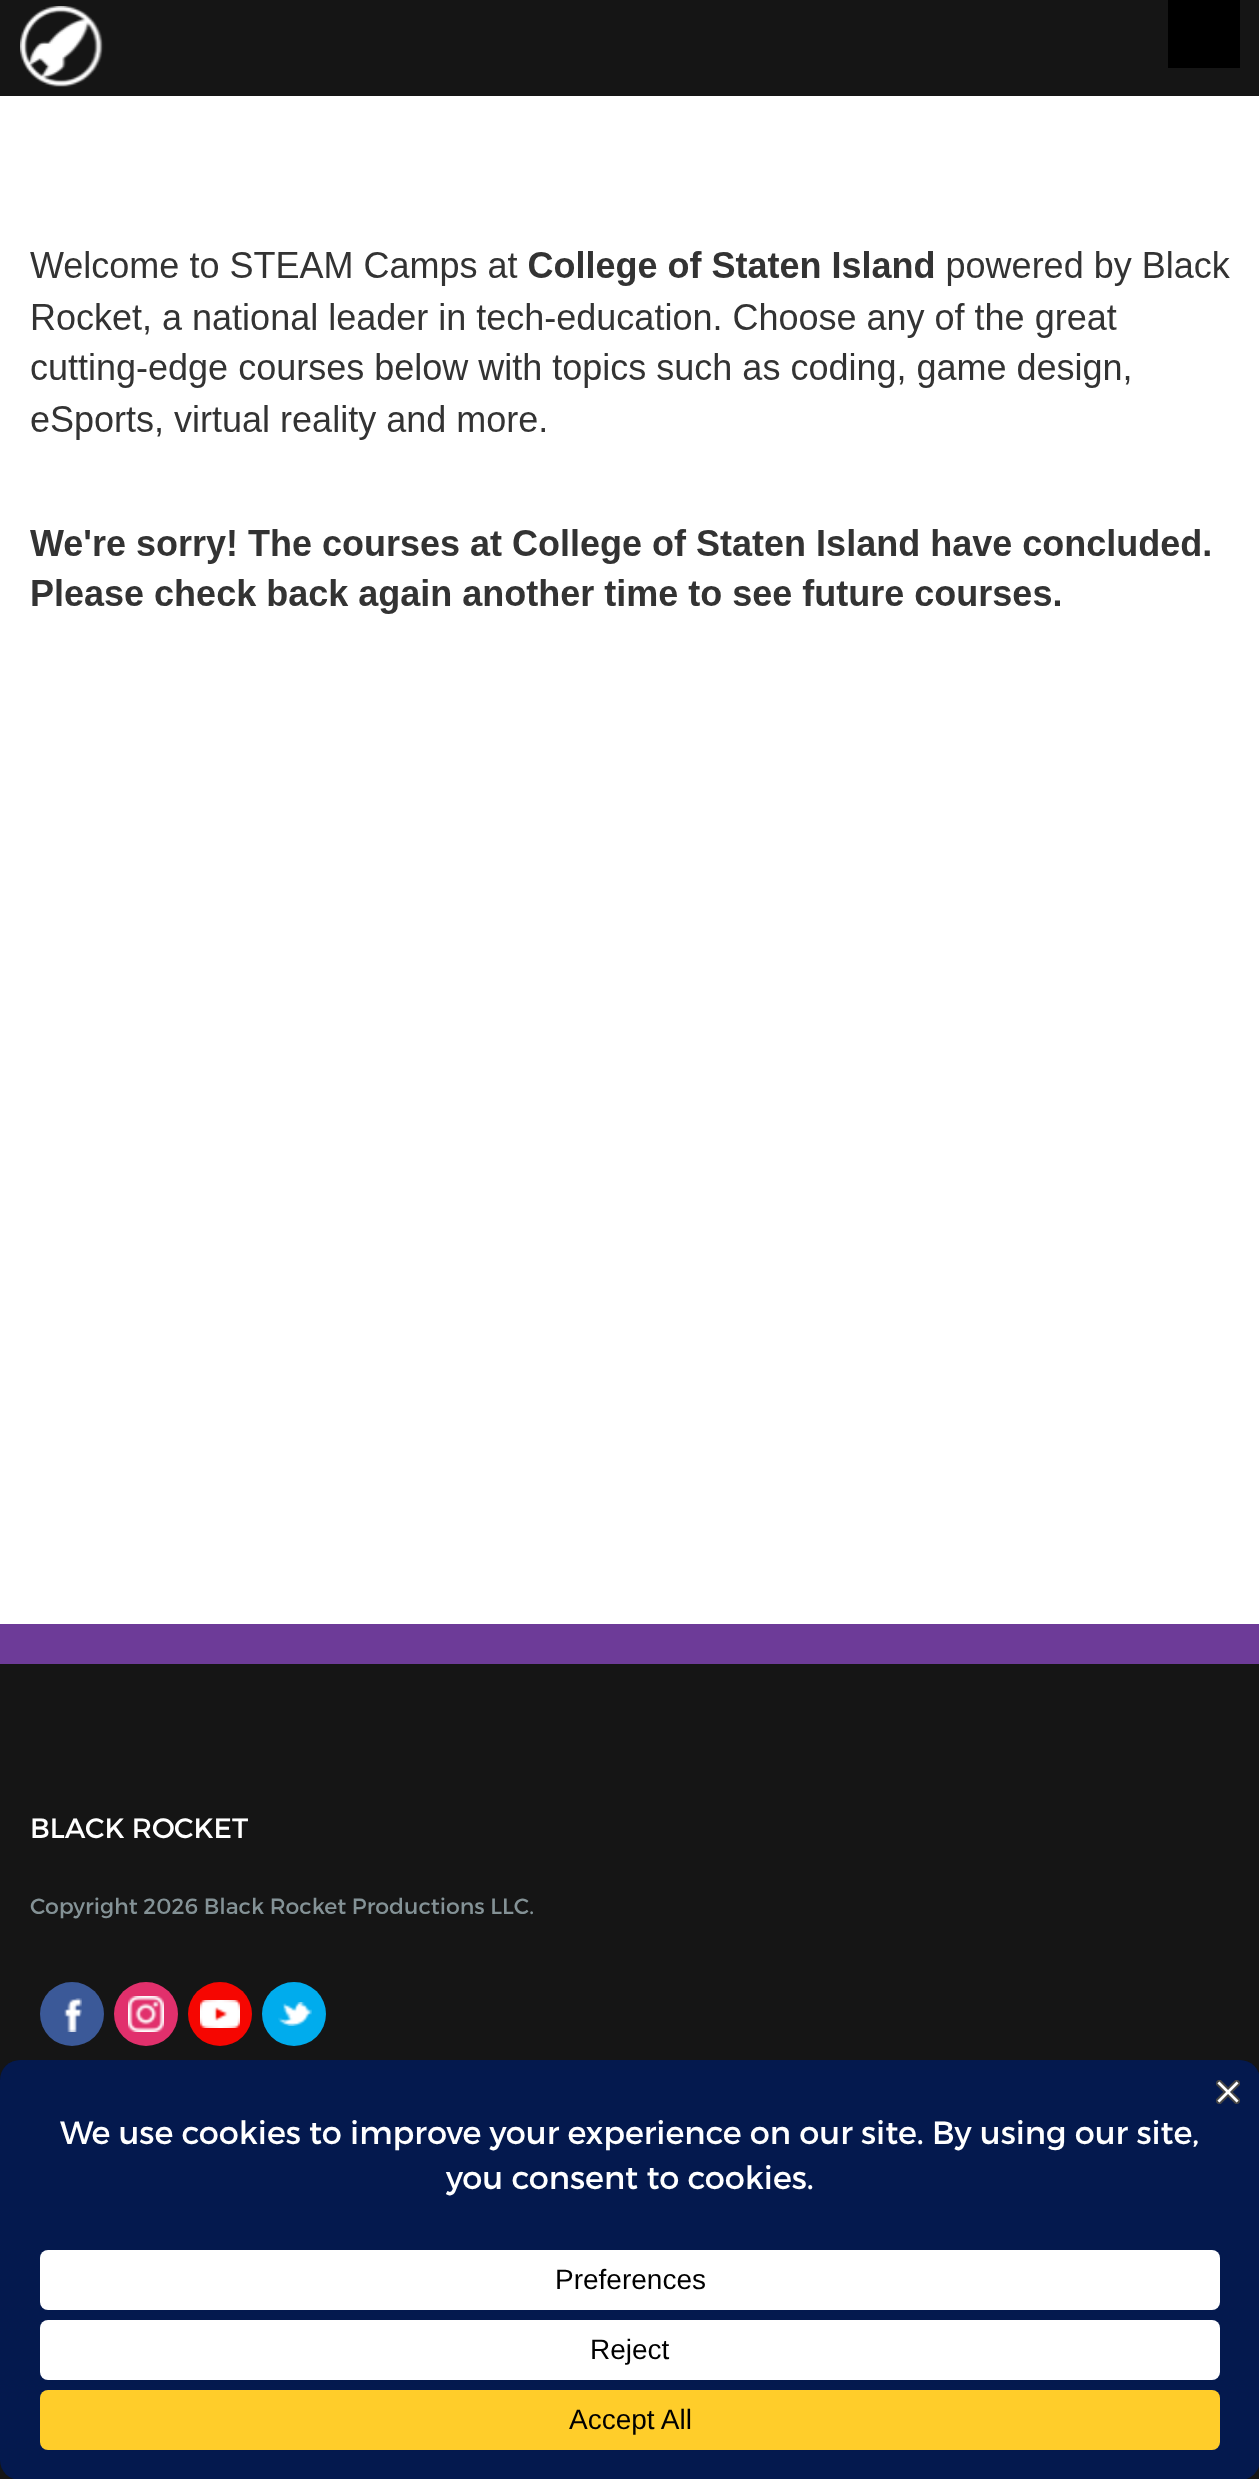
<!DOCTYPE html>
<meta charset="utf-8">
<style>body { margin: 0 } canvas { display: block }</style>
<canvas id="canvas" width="1259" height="2479"></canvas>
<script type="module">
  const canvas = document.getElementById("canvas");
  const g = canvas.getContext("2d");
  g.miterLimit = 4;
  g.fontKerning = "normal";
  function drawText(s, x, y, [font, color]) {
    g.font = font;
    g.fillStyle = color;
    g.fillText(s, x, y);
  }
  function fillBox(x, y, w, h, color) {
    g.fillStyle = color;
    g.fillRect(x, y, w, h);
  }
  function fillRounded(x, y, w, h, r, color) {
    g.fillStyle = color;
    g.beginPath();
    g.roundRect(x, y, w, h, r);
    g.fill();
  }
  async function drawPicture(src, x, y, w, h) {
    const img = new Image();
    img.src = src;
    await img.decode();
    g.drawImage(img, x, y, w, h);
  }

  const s1 = ["28px Montserrat", "#FFFFFF"];
  const s2 = ["22px Montserrat", "#849296"];
  const s3 = ["32px Montserrat", "#FFFFFF"];
  const s4 = ["28px Liberation Sans", "#000000"];

  fillBox(0, 0, 1259, 2479, "#FFFFFF");
  fillBox(0, 0, 1259, 96, "#151515");
  await drawPicture("pic1.png", 20, 6, 84, 81);
  fillBox(1168, 0, 72, 68, "#000000");
  await drawPicture("pic2.png", 30, 96, 1200, 518);
  fillBox(0, 1624, 1259, 40, "#6D3B98");
  fillBox(0, 1664, 1259, 815, "#151515");
  drawText("BLACK ROCKET", 30, 1838, s1);
  drawText("Copyright 2026 Black Rocket Productions LLC.", 30, 1914, s2);
  g.fillStyle = "#3B5998";
  g.beginPath();
  g.arc(72, 2014, 32, 0, Math.PI * 2);
  g.fill();
  await drawPicture("pic3.png", 64, 1998, 18, 34);
  g.fillStyle = "#E1306C";
  g.beginPath();
  g.arc(146, 2014, 32, 0, Math.PI * 2);
  g.fill();
  await drawPicture("pic4.png", 128, 1996, 36, 36);
  g.fillStyle = "#F60601";
  g.beginPath();
  g.arc(220, 2014, 32, 0, Math.PI * 2);
  g.fill();
  await drawPicture("pic5.png", 200, 2000, 40, 28);
  g.fillStyle = "#00ACED";
  g.beginPath();
  g.arc(294, 2014, 32, 0, Math.PI * 2);
  g.fill();
  await drawPicture("pic6.png", 278, 2002, 34, 24);
  fillRounded(0, 2060, 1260, 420, 20, "#04194E");
  await drawPicture("pic7.png", 1216, 2080, 24, 24);
  drawText("We use cookies to improve your experience on our site. By using our site,", 60, 2144, s3);
  drawText("you consent to cookies.", 446, 2189, s3);
  fillRounded(40, 2250, 1180, 60, 8, "#FFFFFF");
  drawText("Preferences", 555, 2289, s4);
  fillRounded(40, 2320, 1180, 60, 8, "#FFFFFF");
  drawText("Reject", 590, 2359, s4);
  fillRounded(40, 2390, 1180, 60, 8, "#FFCD2A");
  drawText("Accept All", 569, 2429, s4);
</script>
